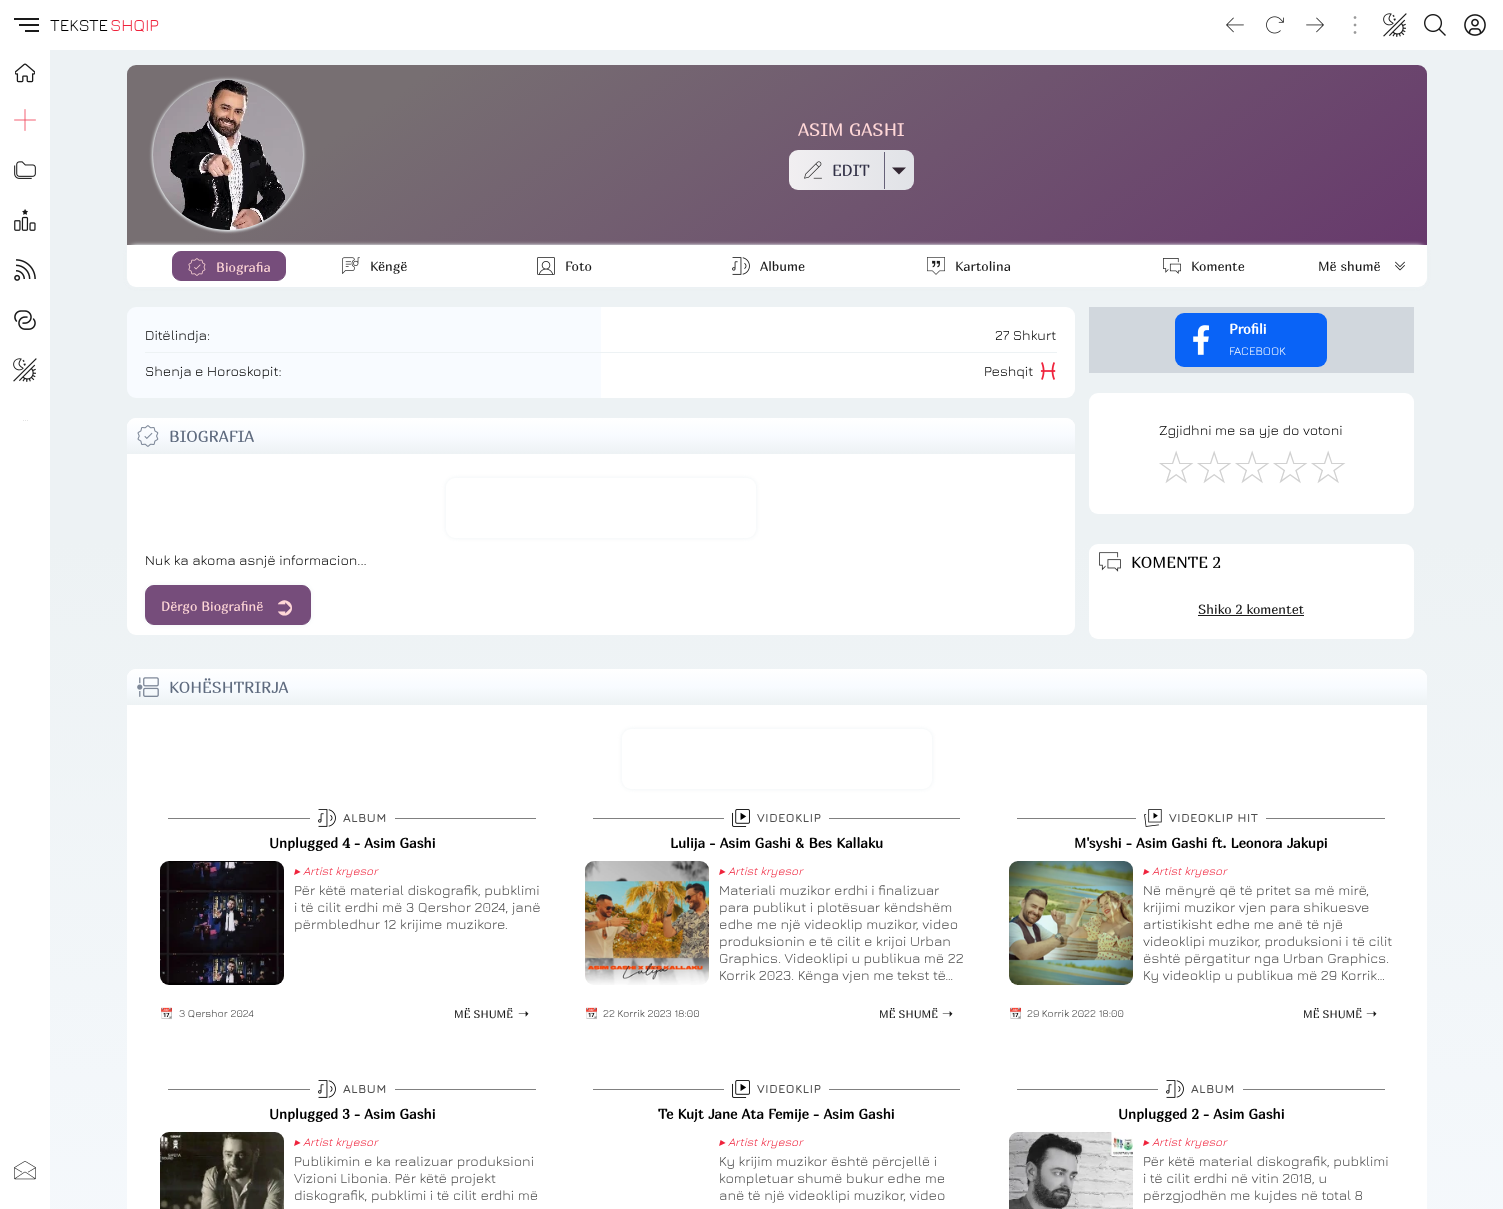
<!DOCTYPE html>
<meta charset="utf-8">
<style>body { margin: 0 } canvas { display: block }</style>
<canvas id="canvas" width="1503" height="1209"></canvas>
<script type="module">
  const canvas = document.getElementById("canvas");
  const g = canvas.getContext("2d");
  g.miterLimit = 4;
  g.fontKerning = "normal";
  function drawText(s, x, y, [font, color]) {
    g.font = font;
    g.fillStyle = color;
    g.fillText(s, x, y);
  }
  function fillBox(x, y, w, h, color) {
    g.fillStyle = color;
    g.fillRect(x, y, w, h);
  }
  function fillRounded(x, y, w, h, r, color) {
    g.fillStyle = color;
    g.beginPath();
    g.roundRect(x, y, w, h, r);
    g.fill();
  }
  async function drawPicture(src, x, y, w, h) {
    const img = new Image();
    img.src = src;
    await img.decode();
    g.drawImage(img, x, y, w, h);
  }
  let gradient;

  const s1 = ["300 17px Jura", "#000000"];
  const s2 = ["300 17px Jura", "#EF233C"];
  const s3 = ["18px Marmelad", "#FFD7D7"];
  const s4 = ["16px Marmelad", "#323147"];
  const s5 = ["13.25px Marmelad", "#FFD7D7"];
  const s6 = ["13.25px Marmelad", "#1A1A1A"];
  const s7 = ["300 14px Jura", "#000000"];
  const s8 = ["16px Marmelad", "#5F6B7F"];
  const s9 = ["25px DejaVu Sans", "#FFD7D7"];
  const s10 = ["bold 14px Marmelad", "#FFFFFF"];
  const s11 = ["300 11.75px Jura", "#FFFFFF"];
  const s12 = ["45px DejaVu Sans", "#D1D1D1"];
  const s13 = ["16px Marmelad", "#000000"];
  const s14 = ["bold 12px Jura", "#4D4D4D"];
  const s15 = ["bold 14px Marmelad", "#000000"];
  const s16 = ["italic 11.75px DejaVu Sans", "#EF233C"];
  const s17 = ["italic 300 11.75px Jura", "#EF233C"];
  const s18 = ["300 14px Jura", "#4D4D4D"];
  const s19 = ["10.5px Noto Color Emoji", "#333333"];
  const s20 = ["300 10.5px Jura", "#333333"];
  const s21 = ["11px Marmelad", "#1A1A1A"];
  const s22 = ["13.25px DejaVu Sans", "#1A1A1A"];

  fillBox(0, 0, 1503, 1209, "#FFFFFF");
  fillBox(14, 18, 25, 2, "#1A1A1A");
  fillBox(19, 24, 20, 2, "#1A1A1A");
  fillBox(25, 30, 14, 2, "#1A1A1A");
  drawText("TEKSTE", 50, 31, s1);
  drawText("SHQIP", 110, 31, s2);
  await drawPicture("pic1.png", 1226, 17, 18, 16);
  await drawPicture("pic2.png", 1266, 16, 18, 18);
  await drawPicture("pic3.png", 1306, 17, 18, 16);
  await drawPicture("pic4.png", 1353, 16, 4, 18);
  await drawPicture("pic5.png", 1383, 13, 24, 24);
  await drawPicture("pic6.png", 1424, 14, 22, 22);
  await drawPicture("pic7.png", 1464, 14, 22, 22);
  await drawPicture("pic8.png", 15, 63, 20, 20);
  await drawPicture("pic9.png", 14, 109, 22, 22);
  await drawPicture("pic10.png", 14, 161, 22, 18);
  await drawPicture("pic11.png", 14, 209, 22, 22);
  await drawPicture("pic12.png", 14, 259, 22, 22);
  await drawPicture("pic13.png", 14, 310, 22, 20);
  await drawPicture("pic5.png", 13, 358, 24, 24);
  await drawPicture("pic14.png", 23, 420, 5, 1);
  await drawPicture("pic15.png", 14, 1161, 22, 19);
  gradient = g.createLinearGradient(776, 50, 777, 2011);
  gradient.addColorStop(0.25, "#EDF2F4");
  gradient.addColorStop(0.75, "#F8FBFF");
  gradient.addColorStop(1, "#F8FBFF");
  g.fillStyle = gradient;
  g.fillRect(50, 50, 1453, 1159);
  gradient = g.createLinearGradient(521, -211, 1033, 521);
  gradient.addColorStop(0.2, "#776F72");
  gradient.addColorStop(1, "#67396C");
  g.fillStyle = gradient;
  g.beginPath();
  g.roundRect(127, 65, 1300, 180, [9, 9, 0, 0]);
  g.fill();
  g.fillStyle = "#EDF2F4";
  g.filter = "blur(2px)";
  g.beginPath();
  g.roundRect(153, 80, 150, 150, 75);
  g.fill();
  g.filter = "none";
  g.filter = "blur(1.5px)";
  g.beginPath();
  g.roundRect(153, 81, 150, 150, 75);
  g.fill();
  g.filter = "none";
  await drawPicture("pic16.png", 153, 80, 150, 150);
  drawText("ASIM GASHI", 798, 136, s3);
  gradient = g.createLinearGradient(789, 170, 914, 170);
  gradient.addColorStop(0, "rgba(255, 255, 255, 0.9)");
  gradient.addColorStop(1, "rgba(237, 242, 244, 0.9)");
  g.fillStyle = gradient;
  g.beginPath();
  g.roundRect(789, 150, 125, 40, 9);
  g.fill();
  await drawPicture("pic17.png", 804, 161, 18, 18);
  drawText("EDIT", 832, 176, s4);
  fillBox(884, 152, 1, 37, "#666178");
  g.fillStyle = "#332733";
  g.beginPath();
  g.moveTo(892, 167.5);
  g.lineTo(899, 174.5);
  g.lineTo(906, 167.5);
  g.closePath();
  g.fill();
  g.fillStyle = "#EDF2F4";
  g.filter = "blur(2px)";
  g.beginPath();
  g.roundRect(127, 245, 1300, 42, 9);
  g.fill();
  g.filter = "none";
  g.filter = "blur(1.5px)";
  g.beginPath();
  g.roundRect(127, 246, 1300, 42, 9);
  g.fill();
  g.filter = "none";
  g.fillStyle = "#FFFFFF";
  g.beginPath();
  g.roundRect(127, 245, 1300, 42, [0, 0, 9, 9]);
  g.fill();
  g.fillStyle = "#764D7B";
  g.beginPath();
  g.roundRect(172.5, 251.5, 113, 29, 8.5);
  g.fill();
  g.strokeStyle = "#764D7B";
  g.stroke();
  await drawPicture("pic18.png", 188, 258, 18, 18);
  drawText("Biografia", 216, 272, s5);
  await drawPicture("pic19.png", 342, 257, 18, 17);
  drawText("Këngë", 370, 271, s6);
  await drawPicture("pic20.png", 537, 257, 18, 18);
  drawText("Foto", 565, 271, s6);
  await drawPicture("pic21.png", 732, 257, 18, 18);
  drawText("Albume", 760, 271, s6);
  await drawPicture("pic22.png", 927, 257, 18, 18);
  drawText("Kartolina", 955, 271, s6);
  await drawPicture("pic23.png", 1163, 258, 18, 16);
  drawText("Komente", 1191, 271, s6);
  drawText("Më shumë", 1318, 271, s6);
  await drawPicture("pic24.png", 1395, 261, 10, 10);
  g.fillStyle = "#F8FBFF";
  g.beginPath();
  g.roundRect(127, 307, 474, 91, [9, 0, 0, 9]);
  g.fill();
  g.fillStyle = "#FFFFFF";
  g.beginPath();
  g.roundRect(601, 307, 474, 91, [0, 9, 9, 0]);
  g.fill();
  fillBox(145, 352, 912, 1, "#EDF2F4");
  drawText("Ditëlindja:", 145, 340, s7);
  drawText("27 Shkurt", 995, 340, s7);
  drawText("Shenja e Horoskopit:", 145, 376, s7);
  drawText("Peshqit", 984, 376, s7);
  await drawPicture("pic25.png", 1040, 362, 16, 18);
  fillRounded(127, 418, 948, 217, 9, "#FFFFFF");
  gradient = g.createLinearGradient(601, 418, 601, 454);
  gradient.addColorStop(0, "#FFFFFF");
  gradient.addColorStop(0.5, "#F8FBFF");
  gradient.addColorStop(1, "#EDF2F4");
  g.fillStyle = gradient;
  g.beginPath();
  g.roundRect(127, 418, 948, 36, [9, 9, 0, 0]);
  g.fill();
  await drawPicture("pic26.png", 137, 425, 22, 22);
  drawText("BIOGRAFIA", 169, 442, s8);
  g.fillStyle = "#EDF2F4";
  g.filter = "blur(2px)";
  g.beginPath();
  g.roundRect(446, 478, 310, 60, 9);
  g.fill();
  g.filter = "none";
  fillRounded(446, 478, 310, 60, 9, "#FFFFFF");
  drawText("Nuk ka akoma asnjë informacion...", 145, 565, s7);
  g.fillStyle = "#EFF3F5";
  g.filter = "blur(2px)";
  g.beginPath();
  g.roundRect(145, 585, 166, 40, 9);
  g.fill();
  g.filter = "none";
  g.fillStyle = "#764D7B";
  g.beginPath();
  g.roundRect(145.5, 585.5, 165, 39, 8.5);
  g.fill();
  g.stroke();
  drawText("Dërgo Biografinë", 161, 611, s5);
  drawText("➲", 274, 615, s9);
  fillBox(1089, 307, 325, 66, "#D1D7DD");
  fillRounded(1175, 313, 152, 54, 9, "#0963F7");
  await drawPicture("pic27.png", 1193, 325, 16, 30);
  drawText("Profili", 1229, 334, s10);
  drawText("FACEBOOK", 1229, 355, s11);
  fillRounded(1089, 393, 325, 121, 9, "#FFFFFF");
  drawText("Zgjidhni me sa yje do votoni", 1159, 435, s7);
  drawText("☆", 1156, 483, s12);
  drawText("☆", 1194, 483, s12);
  drawText("☆", 1232, 483, s12);
  drawText("☆", 1270, 483, s12);
  drawText("☆", 1308, 483, s12);
  fillRounded(1089, 544, 325, 95, 9, "#FFFFFF");
  await drawPicture("pic28.png", 1099, 552, 22, 20);
  drawText("KOMENTE 2", 1131, 568, s13);
  drawText("Shiko 2 komentet", 1198, 614, s6);
  fillBox(1198, 615, 106, 1, "#1A1A1A");
  fillRounded(127, 669, 1300, 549, 9, "#FFFFFF");
  gradient = g.createLinearGradient(777, 669, 777, 705);
  gradient.addColorStop(0, "#FFFFFF");
  gradient.addColorStop(0.5, "#F8FBFF");
  gradient.addColorStop(1, "#EDF2F4");
  g.fillStyle = gradient;
  g.beginPath();
  g.roundRect(127, 669, 1300, 36, [9, 9, 0, 0]);
  g.fill();
  await drawPicture("pic29.png", 137, 677, 22, 20);
  drawText("KOHËSHTRIRJA", 169, 693, s8);
  g.fillStyle = "#EDF2F4";
  g.filter = "blur(2px)";
  g.beginPath();
  g.roundRect(622, 729, 310, 60, 9);
  g.fill();
  g.filter = "none";
  fillRounded(622, 729, 310, 60, 9, "#FFFFFF");
  fillBox(168, 818, 142, 1, "#808080");
  await drawPicture("pic30.png", 318, 809, 18, 18);
  g.letterSpacing = "1px";
  drawText("ALBUM", 343, 822, s14);
  fillBox(395, 818, 141, 1, "#808080");
  g.letterSpacing = "0px";
  drawText("Unplugged 4 - Asim Gashi", 269, 848, s15);
  await drawPicture("pic31.png", 160, 861, 124, 124);
  drawText("▸", 294, 875, s16);
  drawText("Artist kryesor", 303, 875, s17);
  drawText("Për këtë material diskografik, pubklimi", 294, 895, s18);
  drawText("i të cilit erdhi më 3 Qershor 2024, janë", 294, 912, s18);
  drawText("përmbledhur 12 krijime muzikore.", 294, 929, s18);
  drawText("📆", 160, 1017, s19);
  drawText("3 Qershor 2024", 179, 1017, s20);
  drawText("MË SHUMË", 454, 1018, s21);
  drawText("➝", 518, 1018, s22);
  fillBox(593, 818, 131, 1, "#808080");
  await drawPicture("pic32.png", 732, 809, 18, 18);
  g.letterSpacing = "1px";
  drawText("VIDEOKLIP", 757, 822, s14);
  fillBox(829, 818, 131, 1, "#808080");
  g.letterSpacing = "0px";
  drawText("Lulija - Asim Gashi & Bes Kallaku", 670, 848, s15);
  await drawPicture("pic33.png", 585, 861, 124, 124);
  drawText("▸", 719, 875, s16);
  drawText("Artist kryesor", 728, 875, s17);
  drawText("Materiali muzikor erdhi i finalizuar", 719, 895, s18);
  drawText("para publikut i plotësuar këndshëm", 719, 912, s18);
  drawText("edhe me një videoklip muzikor, video", 719, 929, s18);
  drawText("produksionin e të cilit e krijoi Urban", 719, 946, s18);
  drawText("Graphics. Videoklipi u publikua më 22", 719, 963, s18);
  drawText("Korrik 2023. Kënga vjen me tekst të…", 719, 980, s18);
  drawText("📆", 585, 1017, s19);
  drawText("22 Korrik 2023 18:00", 603, 1017, s20);
  drawText("MË SHUMË", 879, 1018, s21);
  drawText("➝", 942, 1018, s22);
  fillBox(1017, 818, 119, 1, "#808080");
  await drawPicture("pic34.png", 1144, 809, 18, 18);
  g.letterSpacing = "1px";
  drawText("VIDEOKLIP HIT", 1169, 822, s14);
  fillBox(1266, 818, 119, 1, "#808080");
  g.letterSpacing = "0px";
  drawText("M'syshi - Asim Gashi ft. Leonora Jakupi", 1074, 848, s15);
  await drawPicture("pic35.png", 1009, 861, 124, 124);
  drawText("▸", 1143, 875, s16);
  drawText("Artist kryesor", 1152, 875, s17);
  drawText("Në mënyrë që të pritet sa më mirë,", 1143, 895, s18);
  drawText("krijimi muzikor vjen para shikuesve", 1143, 912, s18);
  drawText("artistikisht edhe me anë të një", 1143, 929, s18);
  drawText("videoklipi muzikor, produksioni i të cilit", 1143, 946, s18);
  drawText("është përgatitur nga Urban Graphics.", 1143, 963, s18);
  drawText("Ky videoklip u publikua më 29 Korrik…", 1143, 980, s18);
  drawText("📆", 1009, 1017, s19);
  drawText("29 Korrik 2022 18:00", 1027, 1017, s20);
  drawText("MË SHUMË", 1303, 1018, s21);
  drawText("➝", 1366, 1018, s22);
  fillBox(168, 1089, 142, 1, "#808080");
  await drawPicture("pic30.png", 318, 1080, 18, 18);
  g.letterSpacing = "1px";
  drawText("ALBUM", 343, 1093, s14);
  fillBox(395, 1089, 141, 1, "#808080");
  g.letterSpacing = "0px";
  drawText("Unplugged 3 - Asim Gashi", 269, 1119, s15);
  await drawPicture("pic36.png", 160, 1132, 124, 77);
  drawText("▸", 294, 1146, s16);
  drawText("Artist kryesor", 303, 1146, s17);
  drawText("Publikimin e ka realizuar produksioni", 294, 1166, s18);
  drawText("Vizioni Libonia. Për këtë projekt", 294, 1183, s18);
  drawText("diskografik, pubklimi i të cilit erdhi më", 294, 1200, s18);
  fillBox(593, 1089, 131, 1, "#808080");
  await drawPicture("pic32.png", 732, 1080, 18, 18);
  g.letterSpacing = "1px";
  drawText("VIDEOKLIP", 757, 1093, s14);
  fillBox(829, 1089, 131, 1, "#808080");
  g.letterSpacing = "0px";
  drawText("Te Kujt Jane Ata Femije - Asim Gashi", 658, 1119, s15);
  drawText("▸", 719, 1146, s16);
  drawText("Artist kryesor", 728, 1146, s17);
  drawText("Ky krijim muzikor është përcjellë i", 719, 1166, s18);
  drawText("kompletuar shumë bukur edhe me", 719, 1183, s18);
  drawText("anë të një videoklipi muzikor, video", 719, 1200, s18);
  fillBox(1017, 1089, 141, 1, "#808080");
  await drawPicture("pic30.png", 1166, 1080, 18, 18);
  g.letterSpacing = "1px";
  drawText("ALBUM", 1191, 1093, s14);
  fillBox(1243, 1089, 142, 1, "#808080");
  g.letterSpacing = "0px";
  drawText("Unplugged 2 - Asim Gashi", 1118, 1119, s15);
  await drawPicture("pic37.png", 1009, 1132, 124, 77);
  drawText("▸", 1143, 1146, s16);
  drawText("Artist kryesor", 1152, 1146, s17);
  drawText("Për këtë material diskografik, pubklimi", 1143, 1166, s18);
  drawText("i të cilit erdhi në vitin 2018, u", 1143, 1183, s18);
  drawText("përzgjodhën me kujdes në total 8", 1143, 1200, s18);
</script>
